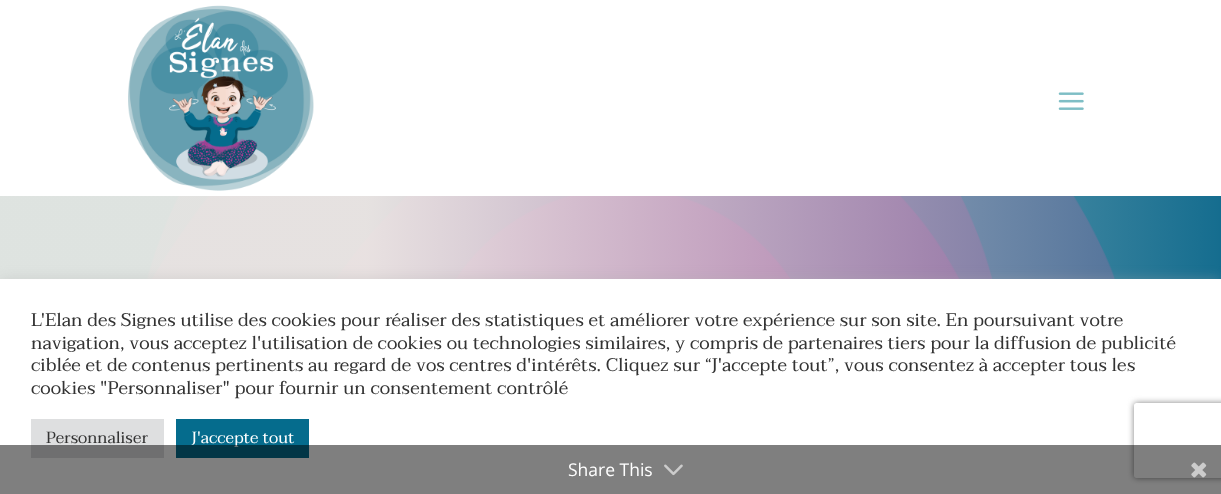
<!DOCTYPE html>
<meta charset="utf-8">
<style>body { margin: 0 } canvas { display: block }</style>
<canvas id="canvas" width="1221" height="494"></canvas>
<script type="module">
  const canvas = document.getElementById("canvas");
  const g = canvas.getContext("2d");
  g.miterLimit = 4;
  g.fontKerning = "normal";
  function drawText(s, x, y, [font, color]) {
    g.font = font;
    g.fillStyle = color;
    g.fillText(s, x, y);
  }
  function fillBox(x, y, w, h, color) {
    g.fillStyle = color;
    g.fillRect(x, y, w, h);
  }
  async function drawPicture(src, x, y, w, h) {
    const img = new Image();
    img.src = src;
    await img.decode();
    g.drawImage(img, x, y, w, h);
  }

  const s1 = ["18.33px Taviraj", "#333333"];
  const s2 = ["16.25px Taviraj", "#333333"];
  const s3 = ["16.25px Taviraj", "#FFFFFF"];
  const s4 = ["17.5px Open Sans", "#FFFFFF"];

  fillBox(0, 0, 1221, 494, "#FFFFFF");
  await drawPicture("pic1.png", 128, 5, 186, 186);
  await drawPicture("pic2.png", 1058, 92, 26, 18);
  await drawPicture("pic3.png", 0, 196, 1221, 83);
  g.fillStyle = "rgba(172, 171, 171, 0.3)";
  g.filter = "blur(6px)";
  g.beginPath();
  g.rect(0, 278, 1221, 216);
  g.fill();
  g.filter = "none";
  fillBox(0, 279, 1221, 215, "#FFFFFF");
  drawText("L'Elan des Signes utilise des cookies pour réaliser des statistiques et améliorer votre expérience sur son site. En poursuivant votre", 31, 326, s1);
  drawText("navigation, vous acceptez l'utilisation de cookies ou technologies similaires, y compris de partenaires tiers pour la diffusion de publicité", 31, 349, s1);
  drawText("ciblée et de contenus pertinents au regard de vos centres d'intérêts. Cliquez sur “J'accepte tout”, vous consentez à accepter tous les", 31, 371, s1);
  drawText("cookies \"Personnaliser\" pour fournir un consentement contrôlé", 31, 394, s1);
  fillBox(31, 419, 133, 39, "#DEDFE0");
  drawText("Personnaliser", 46, 443, s2);
  fillBox(176, 419, 133, 39, "#056C8D");
  drawText("J'accepte tout", 191, 443, s3);
  g.save();
  g.beginPath();
  g.moveTo(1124, 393);
  g.lineTo(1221, 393);
  g.lineTo(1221, 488);
  g.lineTo(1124, 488);
  g.closePath();
  g.moveTo(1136.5, 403);
  g.lineTo(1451.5, 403);
  g.bezierCurveTo(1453, 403, 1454, 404, 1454, 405.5);
  g.lineTo(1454, 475.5);
  g.bezierCurveTo(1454, 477, 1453, 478, 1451.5, 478);
  g.lineTo(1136.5, 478);
  g.bezierCurveTo(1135, 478, 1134, 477, 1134, 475.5);
  g.lineTo(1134, 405.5);
  g.bezierCurveTo(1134, 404, 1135, 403, 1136.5, 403);
  g.closePath();
  g.clip("evenodd");
  g.fillStyle = "#808080";
  g.filter = "blur(3px)";
  g.beginPath();
  g.roundRect(1134, 403, 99, 75, 2.5);
  g.fill();
  g.filter = "none";
  g.restore();
  fillBox(0, 445, 1221, 49, "rgba(0, 0, 0, 0.5)");
  drawText("Share This", 568, 476, s4);
  await drawPicture("pic4.png", 664, 464, 19, 12);
  await drawPicture("pic5.png", 1191, 462, 16, 16);
</script>
